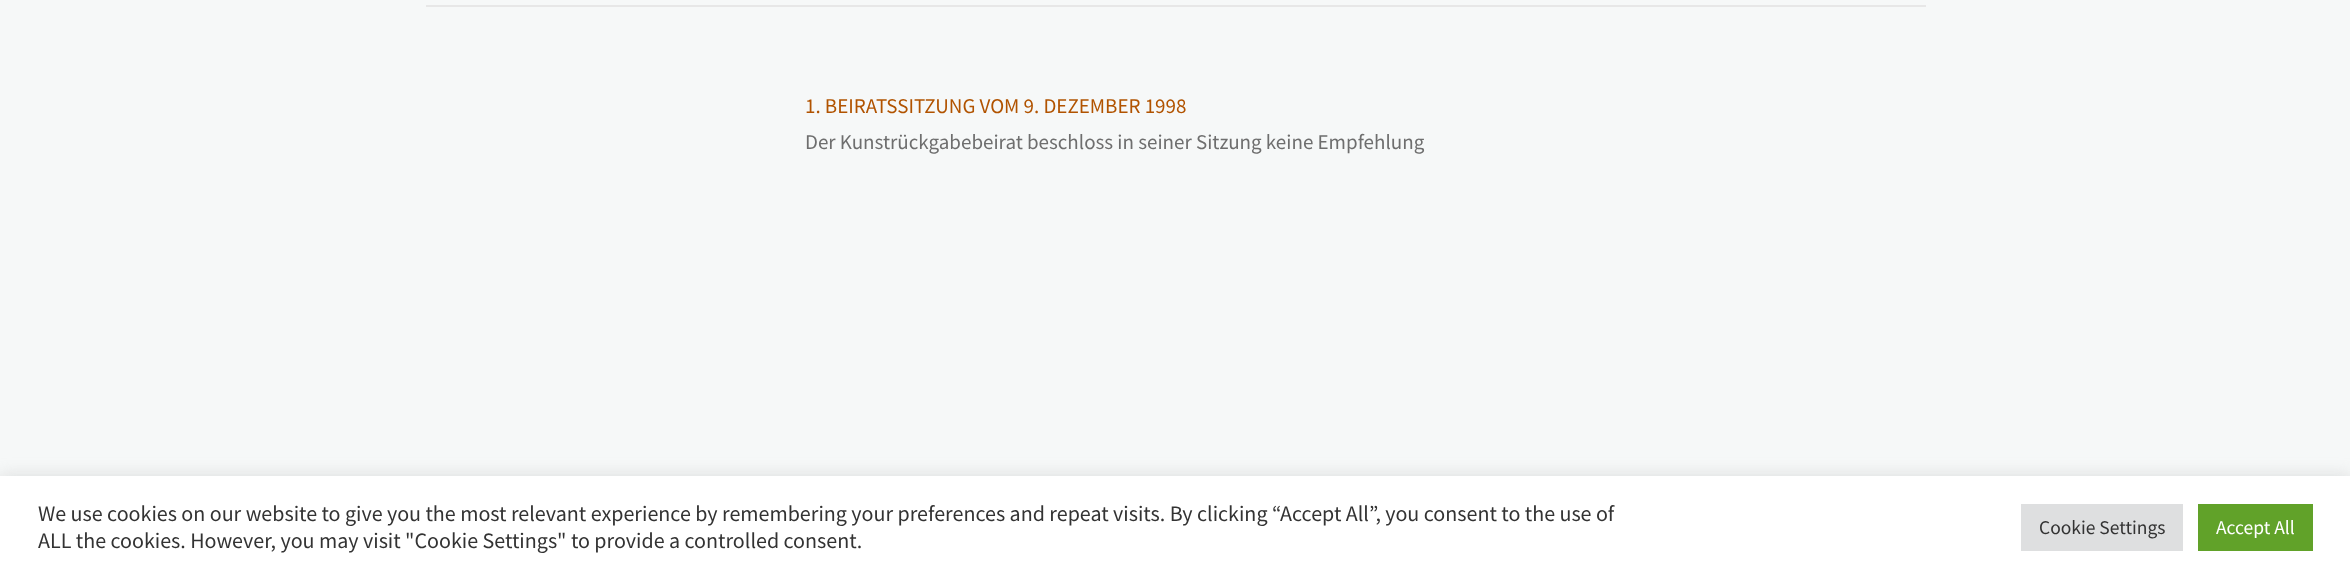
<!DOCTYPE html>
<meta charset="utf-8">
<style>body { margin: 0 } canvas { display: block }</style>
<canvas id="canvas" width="2350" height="578"></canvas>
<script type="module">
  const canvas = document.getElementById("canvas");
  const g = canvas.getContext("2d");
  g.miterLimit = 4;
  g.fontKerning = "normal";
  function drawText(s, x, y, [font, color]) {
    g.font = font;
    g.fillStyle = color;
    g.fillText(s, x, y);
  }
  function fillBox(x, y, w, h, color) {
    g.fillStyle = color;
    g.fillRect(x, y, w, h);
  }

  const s1 = ["21px Source Sans Pro", "#B15300"];
  const s2 = ["21px Source Sans Pro", "#6E6E6E"];
  const s3 = ["22px Source Sans Pro", "#333333"];
  const s4 = ["19.5px Source Sans Pro", "#333333"];
  const s5 = ["19.5px Source Sans Pro", "#FFFFFF"];

  fillBox(0, 0, 2350, 578, "#F6F8F8");
  fillBox(426, 5, 1500, 2, "#E7E7E7");
  drawText("1. BEIRATSSITZUNG VOM 9. DEZEMBER 1998", 805, 113, s1);
  drawText("Der Kunstrückgabebeirat beschloss in seiner Sitzung keine Empfehlung", 805, 149, s2);
  g.fillStyle = "rgba(172, 171, 171, 0.3)";
  g.filter = "blur(7.5px)";
  g.beginPath();
  g.rect(0, 474, 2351, 104);
  g.fill();
  g.filter = "none";
  fillBox(0, 476, 2350, 102, "#FFFFFF");
  drawText("We use cookies on our website to give you the most relevant experience by remembering your preferences and repeat visits. By clicking “Accept All”, you consent to the use of", 38, 521, s3);
  drawText("ALL the cookies. However, you may visit \"Cookie Settings\" to provide a controlled consent.", 38, 548, s3);
  fillBox(2021, 504, 162, 47, "#DEDFE0");
  drawText("Cookie Settings", 2039, 534, s4);
  fillBox(2198, 504, 115, 47, "#61A229");
  drawText("Accept All", 2216, 534, s5);
</script>
